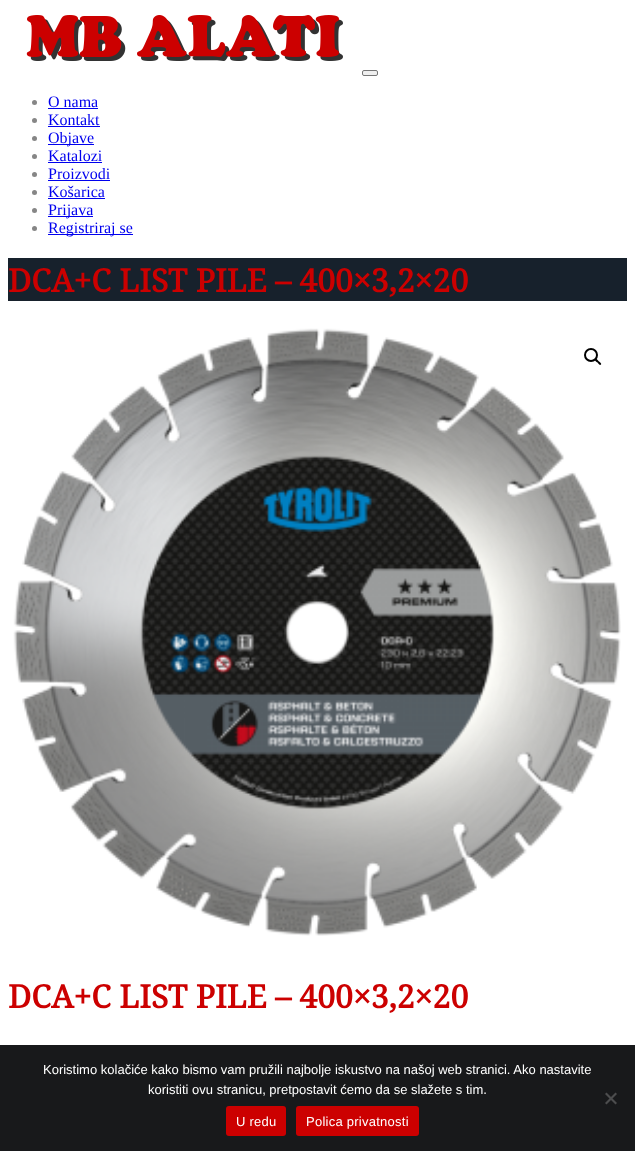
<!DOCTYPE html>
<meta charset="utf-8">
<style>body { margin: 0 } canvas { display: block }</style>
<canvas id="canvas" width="635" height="1151"></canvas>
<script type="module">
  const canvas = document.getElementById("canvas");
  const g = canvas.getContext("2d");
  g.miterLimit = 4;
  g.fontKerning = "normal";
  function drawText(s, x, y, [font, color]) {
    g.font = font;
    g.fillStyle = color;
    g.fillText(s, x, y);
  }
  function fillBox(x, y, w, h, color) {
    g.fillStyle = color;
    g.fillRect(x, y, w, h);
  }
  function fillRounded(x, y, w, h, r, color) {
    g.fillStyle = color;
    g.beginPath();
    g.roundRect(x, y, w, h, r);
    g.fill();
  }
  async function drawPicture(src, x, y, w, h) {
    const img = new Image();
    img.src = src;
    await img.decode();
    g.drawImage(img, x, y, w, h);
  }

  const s1 = ["16px Liberation Serif", "#0000EE"];
  const s2 = ["bold 32px Noto Serif", "#CC0000"];
  const s3 = ["13px Liberation Sans", "#FFFFFF"];

  fillBox(0, 0, 635, 1151, "#FFFFFF");
  await drawPicture("pic1.png", 26, 15, 317, 46);
  g.fillStyle = "#EFEFEF";
  g.beginPath();
  g.roundRect(362.5, 70.5, 15, 5, 1.5);
  g.fill();
  g.strokeStyle = "#767676";
  g.stroke();
  g.fillStyle = "#868686";
  g.beginPath();
  g.arc(34.5, 102.5, 2.5, 0, Math.PI * 2);
  g.fill();
  drawText("O nama", 48, 107, s1);
  fillBox(48, 108, 50, 1, "#0000EE");
  g.fillStyle = "#868686";
  g.beginPath();
  g.arc(34.5, 120.5, 2.5, 0, Math.PI * 2);
  g.fill();
  drawText("Kontakt", 48, 125, s1);
  fillBox(48, 126, 52, 1, "#0000EE");
  g.fillStyle = "#868686";
  g.beginPath();
  g.arc(34.5, 138.5, 2.5, 0, Math.PI * 2);
  g.fill();
  fillBox(48, 144, 46, 1, "#0000EE");
  drawText("Objave", 48, 143, s1);
  g.fillStyle = "#868686";
  g.beginPath();
  g.arc(34.5, 156.5, 2.5, 0, Math.PI * 2);
  g.fill();
  drawText("Katalozi", 48, 161, s1);
  fillBox(48, 162, 54, 1, "#0000EE");
  g.fillStyle = "#868686";
  g.beginPath();
  g.arc(34.5, 174.5, 2.5, 0, Math.PI * 2);
  g.fill();
  drawText("Proizvodi", 48, 179, s1);
  fillBox(48, 180, 62, 1, "#0000EE");
  g.fillStyle = "#868686";
  g.beginPath();
  g.arc(34.5, 192.5, 2.5, 0, Math.PI * 2);
  g.fill();
  drawText("Košarica", 48, 197, s1);
  fillBox(48, 198, 57, 1, "#0000EE");
  g.fillStyle = "#868686";
  g.beginPath();
  g.arc(34.5, 210.5, 2.5, 0, Math.PI * 2);
  g.fill();
  fillBox(48, 216, 45, 1, "#0000EE");
  drawText("Prijava", 48, 215, s1);
  g.fillStyle = "#868686";
  g.beginPath();
  g.arc(34.5, 228.5, 2.5, 0, Math.PI * 2);
  g.fill();
  fillBox(48, 234, 85, 1, "#0000EE");
  drawText("Registriraj se", 48, 233, s1);
  fillBox(8, 258, 619, 43, "#17212C");
  drawText("DCA+C LIST PILE – 400×3,2×20", 8, 292, s2);
  await drawPicture("pic2.png", 13, 328, 608, 608);
  g.beginPath();
  g.arc(591, 355, 6, 0, Math.PI * 2);
  g.strokeStyle = "#000000";
  g.lineWidth = 2;
  g.stroke();
  g.fillStyle = "#000000";
  g.beginPath();
  g.moveTo(595, 359);
  g.bezierCurveTo(596.5, 358, 598, 360.5, 598.5, 361);
  g.bezierCurveTo(599.5, 362, 602, 363.5, 601, 364.5);
  g.bezierCurveTo(599.5, 366, 598, 363, 597.5, 362.5);
  g.bezierCurveTo(596.5, 362, 594, 360, 595, 359);
  g.closePath();
  g.fill();
  drawText("DCA+C LIST PILE – 400×3,2×20", 8, 1008, s2);
  fillBox(0, 1045, 635, 106, "#18191B");
  drawText("Koristimo kolačiće kako bismo vam pružili najbolje iskustvo na našoj web stranici. Ako nastavite", 43, 1074, s3);
  drawText("koristiti ovu stranicu, pretpostavit ćemo da se slažete s tim.", 148, 1094, s3);
  g.fillStyle = "#4C4D4E";
  g.beginPath();
  g.moveTo(615.5, 1092.5);
  g.lineTo(617, 1094);
  g.lineTo(606.5, 1104.5);
  g.lineTo(605, 1103);
  g.closePath();
  g.fill();
  g.beginPath();
  g.moveTo(605, 1094);
  g.lineTo(606.5, 1092.5);
  g.lineTo(617, 1103);
  g.lineTo(615.5, 1104.5);
  g.closePath();
  g.fill();
  fillRounded(226, 1106, 60, 30, 3, "#CC0000");
  g.letterSpacing = "0.25px";
  drawText("U redu", 236, 1126, s3);
  fillRounded(296, 1106, 123, 30, 3, "#CC0000");
  drawText("Polica privatnosti", 306, 1126, s3);
</script>
